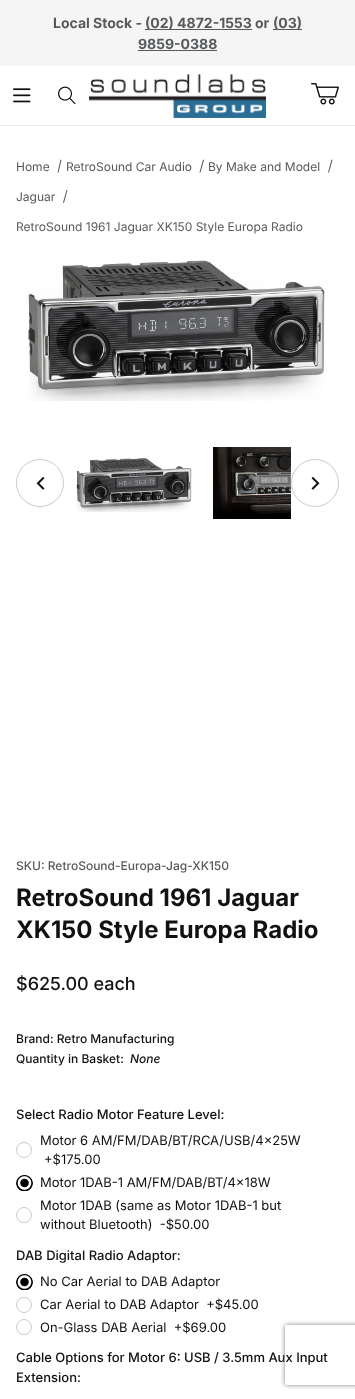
<!DOCTYPE html>
<meta charset="utf-8">
<style>body { margin: 0 } canvas { display: block }</style>
<canvas id="canvas" width="355" height="1399"></canvas>
<script type="module">
  const canvas = document.getElementById("canvas");
  const g = canvas.getContext("2d");
  g.miterLimit = 4;
  g.fontKerning = "normal";
  function drawText(s, x, y, [font, color]) {
    g.font = font;
    g.fillStyle = color;
    g.fillText(s, x, y);
  }
  function fillBox(x, y, w, h, color) {
    g.fillStyle = color;
    g.fillRect(x, y, w, h);
  }
  async function drawPicture(src, x, y, w, h) {
    const img = new Image();
    img.src = src;
    await img.decode();
    g.drawImage(img, x, y, w, h);
  }

  const s1 = ["bold 14px Inter", "#575A5D"];
  const s2 = ["12px Inter", "#575A5D"];
  const s3 = ["500 12px Inter", "#575A5D"];
  const s4 = ["bold 24px Inter", "#111111"];
  const s5 = ["500 18px Inter", "#111111"];
  const s6 = ["500 12px Inter", "#111111"];
  const s7 = ["italic 500 12px Inter", "#111111"];
  const s8 = ["500 13px Inter", "#111111"];
  const s9 = ["13px Inter", "#111111"];

  fillBox(0, 0, 355, 1399, "#FFFFFF");
  fillBox(0, 125, 355, 1, "#EAEAEA");
  fillBox(0, 0, 355, 66, "#F5F5F5");
  drawText("Local Stock -", 53, 28, s1);
  fillBox(145, 29, 107, 1, "#575A5D");
  drawText("(02) 4872-1553 or", 145, 28, s1);
  fillBox(273, 29, 29, 1, "#575A5D");
  drawText("(03)", 273, 28, s1);
  drawText("9859-0388", 138, 49, s1);
  fillBox(138, 50, 79, 1, "#575A5D");
  await drawPicture("pic1.png", 13, 88, 18, 15);
  await drawPicture("pic2.png", 58, 86, 18, 18);
  await drawPicture("pic3.png", 89, 74, 177, 44);
  await drawPicture("pic4.png", 311, 83, 28, 22);
  drawText("Home", 16, 171, s2);
  g.beginPath();
  g.moveTo(60.5, 159.5);
  g.lineTo(61.5, 160);
  g.lineTo(58.5, 172.5);
  g.lineTo(57.5, 172.5);
  g.closePath();
  g.fill();
  drawText("RetroSound Car Audio", 66, 171, s2);
  g.beginPath();
  g.moveTo(203, 159.5);
  g.lineTo(204, 160);
  g.lineTo(200.5, 172.5);
  g.lineTo(199.5, 172.5);
  g.closePath();
  g.fill();
  drawText("By Make and Model", 208, 171, s2);
  g.beginPath();
  g.moveTo(331.5, 159.5);
  g.lineTo(332.5, 160);
  g.lineTo(329, 172.5);
  g.lineTo(328, 172.5);
  g.closePath();
  g.fill();
  drawText("Jaguar", 16, 201, s2);
  g.beginPath();
  g.moveTo(66.5, 190);
  g.lineTo(67.5, 190);
  g.lineTo(64, 203);
  g.lineTo(63, 202.5);
  g.closePath();
  g.fill();
  drawText("RetroSound 1961 Jaguar XK150 Style Europa Radio", 16, 231, s2);
  await drawPicture("pic5.png", 28, 260, 297, 141);
  await drawPicture("pic6.png", 76, 458, 116, 54);
  await drawPicture("pic7.png", 213, 447, 78, 72);
  g.beginPath();
  g.arc(40, 483, 23.5, 0, Math.PI * 2);
  g.strokeStyle = "#CCCCCC";
  g.stroke();
  await drawPicture("pic8.png", 36, 476, 9, 14);
  g.beginPath();
  g.arc(315, 483, 23.5, 0, Math.PI * 2);
  g.stroke();
  await drawPicture("pic9.png", 311, 476, 9, 14);
  drawText("SKU: RetroSound-Europa-Jag-XK150", 16, 870, s3);
  drawText("RetroSound 1961 Jaguar", 16, 906, s4);
  drawText("XK150 Style Europa Radio", 16, 938, s4);
  drawText("$625.00 each", 16, 990, s5);
  drawText("Brand: Retro Manufacturing", 16, 1043, s6);
  drawText("Quantity in Basket:", 16, 1063, s6);
  drawText("None", 130, 1063, s7);
  drawText("Select Radio Motor Feature Level:", 16, 1119, s8);
  g.beginPath();
  g.arc(24, 1150, 7.5, 0, Math.PI * 2);
  g.stroke();
  drawText("Motor 6 AM/FM/DAB/BT/RCA/USB/4x25W", 40, 1145, s9);
  drawText("+$175.00", 44, 1164, s9);
  g.beginPath();
  g.arc(24, 1183, 7.5, 0, Math.PI * 2);
  g.stroke();
  g.fillStyle = "#FFFFFF";
  g.beginPath();
  g.arc(24.5, 1183.5, 8.5, 0, Math.PI * 2);
  g.fill();
  await drawPicture("pic10.png", 16, 1175, 17, 16);
  drawText("Motor 1DAB-1 AM/FM/DAB/BT/4x18W", 40, 1187, s9);
  drawText("Motor 1DAB (same as Motor 1DAB-1 but", 40, 1210, s9);
  g.beginPath();
  g.arc(24, 1215, 7.5, 0, Math.PI * 2);
  g.stroke();
  drawText("without Bluetooth)  -$50.00", 40, 1229, s9);
  drawText("DAB Digital Radio Adaptor:", 16, 1260, s8);
  g.beginPath();
  g.arc(24, 1282, 7.5, 0, Math.PI * 2);
  g.stroke();
  g.fillStyle = "#FFFFFF";
  g.beginPath();
  g.arc(24.5, 1282.5, 8.5, 0, Math.PI * 2);
  g.fill();
  await drawPicture("pic10.png", 16, 1274, 17, 16);
  drawText("No Car Aerial to DAB Adaptor", 40, 1286, s9);
  g.beginPath();
  g.arc(24, 1305, 7.5, 0, Math.PI * 2);
  g.stroke();
  drawText("Car Aerial to DAB Adaptor  +$45.00", 40, 1309, s9);
  g.beginPath();
  g.arc(24, 1327, 7.5, 0, Math.PI * 2);
  g.stroke();
  drawText("On-Glass DAB Aerial  +$69.00", 40, 1332, s9);
  drawText("Cable Options for Motor 6: USB / 3.5mm Aux Input", 16, 1362, s8);
  drawText("Extension:", 16, 1382, s8);
  g.save();
  g.beginPath();
  g.moveTo(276, 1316);
  g.lineTo(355, 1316);
  g.lineTo(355, 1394);
  g.lineTo(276, 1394);
  g.closePath();
  g.moveTo(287, 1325);
  g.lineTo(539, 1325);
  g.bezierCurveTo(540, 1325, 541, 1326, 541, 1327);
  g.lineTo(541, 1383);
  g.bezierCurveTo(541, 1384, 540, 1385, 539, 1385);
  g.lineTo(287, 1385);
  g.bezierCurveTo(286, 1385, 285, 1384, 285, 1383);
  g.lineTo(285, 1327);
  g.bezierCurveTo(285, 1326, 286, 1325, 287, 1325);
  g.closePath();
  g.clip("evenodd");
  g.fillStyle = "#808080";
  g.filter = "blur(2.5px)";
  g.beginPath();
  g.roundRect(285, 1325, 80, 60, 2);
  g.fill();
  g.filter = "none";
  g.restore();
</script>
